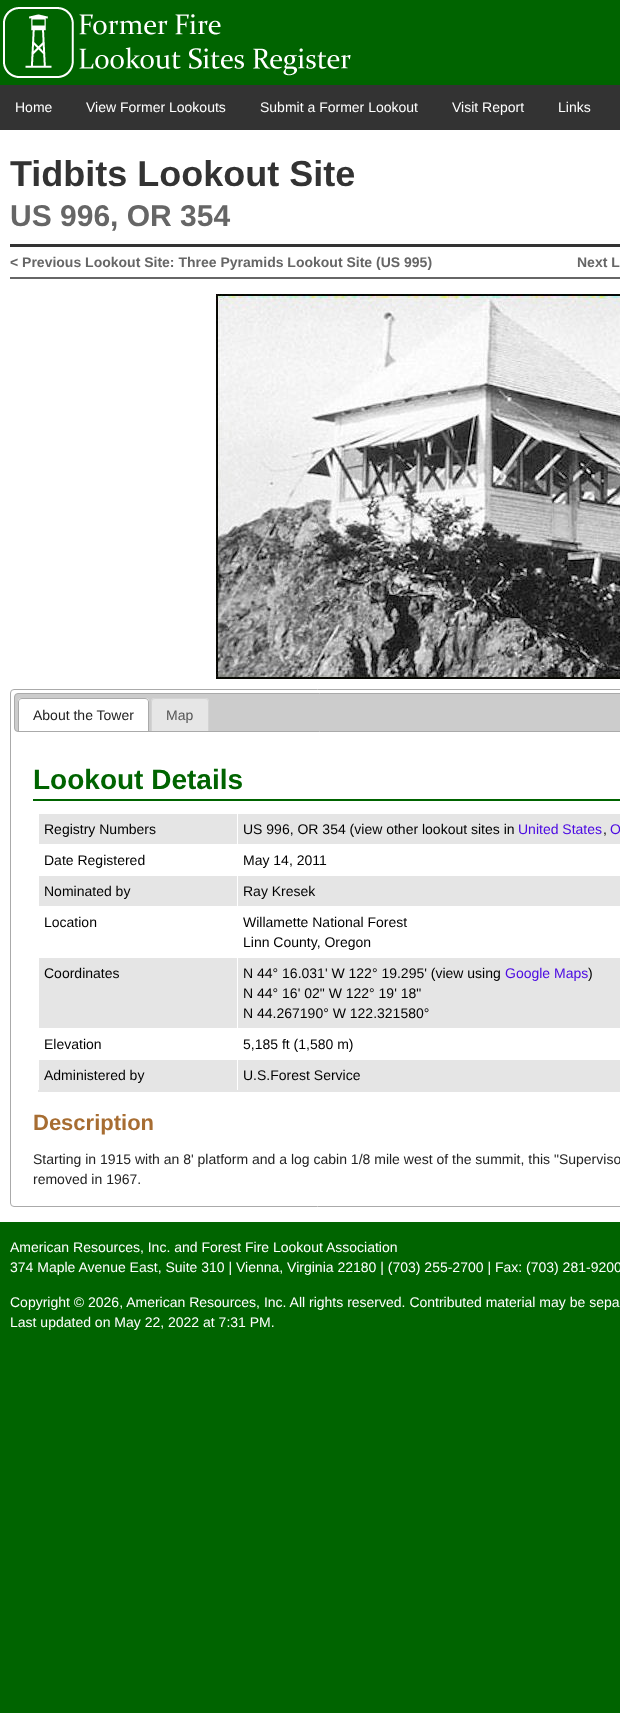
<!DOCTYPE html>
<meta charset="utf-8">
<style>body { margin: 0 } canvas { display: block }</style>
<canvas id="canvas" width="620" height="1713"></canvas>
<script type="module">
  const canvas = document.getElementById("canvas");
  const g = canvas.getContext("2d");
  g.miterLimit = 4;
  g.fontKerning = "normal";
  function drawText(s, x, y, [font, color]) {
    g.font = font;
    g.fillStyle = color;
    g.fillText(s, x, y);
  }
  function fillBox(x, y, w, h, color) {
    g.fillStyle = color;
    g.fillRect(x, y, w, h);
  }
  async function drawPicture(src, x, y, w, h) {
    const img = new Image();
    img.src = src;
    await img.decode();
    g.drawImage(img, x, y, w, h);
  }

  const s1 = ["14px Liberation Sans", "#FFFFFF"];
  const s2 = ["bold 36px Liberation Sans", "#333333"];
  const s3 = ["bold 30px Liberation Sans", "#666666"];
  const s4 = ["bold 14px Liberation Sans", "#666666"];
  const s5 = ["14px Liberation Sans", "#222222"];
  const s6 = ["14px Liberation Sans", "#555555"];
  const s7 = ["bold 28px Liberation Sans", "#006400"];
  const s8 = ["14px Liberation Sans", "#000000"];
  const s9 = ["14px Liberation Sans", "#4C0BE2"];
  const s10 = ["bold 22px Liberation Sans", "#A76D32"];

  fillBox(0, 0, 620, 1713, "#006400");
  await drawPicture("pic1.png", 3, 7, 348, 71);
  fillBox(0, 85, 620, 45, "#333333");
  drawText("Home", 15, 112, s1);
  drawText("View Former Lookouts", 86, 112, s1);
  drawText("Submit a Former Lookout", 260, 112, s1);
  drawText("Visit Report", 452, 112, s1);
  drawText("Links", 558, 112, s1);
  fillBox(0, 130, 620, 1092, "#FFFFFF");
  drawText("Tidbits Lookout Site", 10, 186, s2);
  fillBox(10, 244, 610, 3, "#333333");
  drawText("US 996, OR 354", 10, 226, s3);
  fillBox(10, 277, 610, 2, "#666666");
  drawText("< Previous Lookout Site: Three Pyramids Lookout Site (US 995)", 10, 267, s4);
  drawText("Next L", 577, 267, s4);
  await drawPicture("pic2.png", 216, 294, 404, 385);
  g.beginPath();
  g.roundRect(10.5, 689.5, 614, 517, 3.5);
  g.strokeStyle = "#AAAAAA";
  g.stroke();
  g.fillStyle = "#CCCCCC";
  g.beginPath();
  g.roundRect(14.5, 693.5, 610, 38, 3.5);
  g.fill();
  g.stroke();
  g.fillStyle = "#FFFFFF";
  g.beginPath();
  g.roundRect(18, 698, 131, 33, [4, 4, 0, 0]);
  g.fill();
  g.fillStyle = "#AAAAAA";
  g.beginPath();
  g.moveTo(22, 698);
  g.lineTo(145, 698);
  g.bezierCurveTo(147, 698, 149, 700, 149, 702);
  g.lineTo(149, 731);
  g.lineTo(18, 731);
  g.lineTo(18, 702);
  g.bezierCurveTo(18, 700, 20, 698, 22, 698);
  g.closePath();
  g.moveTo(22, 699);
  g.lineTo(145, 699);
  g.bezierCurveTo(147, 699, 148, 700, 148, 702);
  g.lineTo(148, 731);
  g.lineTo(19, 731);
  g.lineTo(19, 702);
  g.bezierCurveTo(19, 700, 20, 699, 22, 699);
  g.closePath();
  g.fill("evenodd");
  drawText("About the Tower", 33, 720, s5);
  g.fillStyle = "#E6E6E6";
  g.beginPath();
  g.roundRect(151, 698, 58, 33, [4, 4, 0, 0]);
  g.fill();
  g.fillStyle = "#D3D3D3";
  g.beginPath();
  g.moveTo(155, 698);
  g.lineTo(205, 698);
  g.bezierCurveTo(207, 698, 209, 700, 209, 702);
  g.lineTo(209, 731);
  g.lineTo(151, 731);
  g.lineTo(151, 702);
  g.bezierCurveTo(151, 700, 153, 698, 155, 698);
  g.closePath();
  g.moveTo(155, 699);
  g.lineTo(205, 699);
  g.bezierCurveTo(207, 699, 208, 700, 208, 702);
  g.lineTo(208, 731);
  g.lineTo(152, 731);
  g.lineTo(152, 702);
  g.bezierCurveTo(152, 700, 153, 699, 155, 699);
  g.closePath();
  g.fill("evenodd");
  drawText("Map", 166, 720, s6);
  fillBox(33, 799, 587, 2, "#006400");
  drawText("Lookout Details", 33, 789, s7);
  fillBox(39, 814, 581, 30, "#E5E5E5");
  drawText("Registry Numbers", 44, 834, s8);
  fillBox(237, 813, 1, 32, "#FFFFFF");
  drawText("US 996, OR 354 (view other lookout sites in", 243, 834, s8);
  drawText("United States", 518, 834, s9);
  drawText(",", 603, 834, s8);
  drawText("O", 610, 834, s9);
  drawText("Date Registered", 44, 865, s8);
  drawText("May 14, 2011", 243, 865, s8);
  fillBox(39, 876, 581, 30, "#E5E5E5");
  drawText("Nominated by", 44, 896, s8);
  fillBox(237, 875, 1, 32, "#FFFFFF");
  drawText("Ray Kresek", 243, 896, s8);
  drawText("Location", 44, 927, s8);
  drawText("Willamette National Forest", 243, 927, s8);
  drawText("Linn County, Oregon", 243, 947, s8);
  fillBox(39, 958, 581, 70, "#E5E5E5");
  drawText("Coordinates", 44, 978, s8);
  fillBox(237, 957, 1, 72, "#FFFFFF");
  drawText("N 44° 16.031' W 122° 19.295' (view using", 243, 978, s8);
  drawText("Google Maps", 505, 978, s9);
  drawText(")", 588, 978, s8);
  drawText("N 44° 16' 02\" W 122° 19' 18\"", 243, 998, s8);
  drawText("N 44.267190° W 122.321580°", 243, 1018, s8);
  drawText("Elevation", 44, 1049, s8);
  drawText("5,185 ft (1,580 m)", 243, 1049, s8);
  fillBox(39, 1060, 581, 30, "#E5E5E5");
  fillBox(237, 1059, 1, 32, "#FFFFFF");
  fillBox(38, 1090, 582, 2, "#E5E5E5");
  drawText("Administered by", 44, 1080, s8);
  drawText("U.S.Forest Service", 243, 1080, s8);
  drawText("Description", 33, 1130, s10);
  drawText("Starting in 1915 with an 8' platform and a log cabin 1/8 mile west of the summit, this \"Superviso", 33, 1164, s5);
  drawText("removed in 1967.", 33, 1184, s5);
  drawText("American Resources, Inc. and Forest Fire Lookout Association", 10, 1252, s1);
  drawText("374 Maple Avenue East, Suite 310 | Vienna, Virginia 22180 | (703) 255-2700 | Fax: (703) 281-9200", 10, 1272, s1);
  drawText("Copyright © 2026, American Resources, Inc. All rights reserved. Contributed material may be sepa", 10, 1307, s1);
  drawText("Last updated on May 22, 2022 at 7:31 PM.", 10, 1327, s1);
</script>
